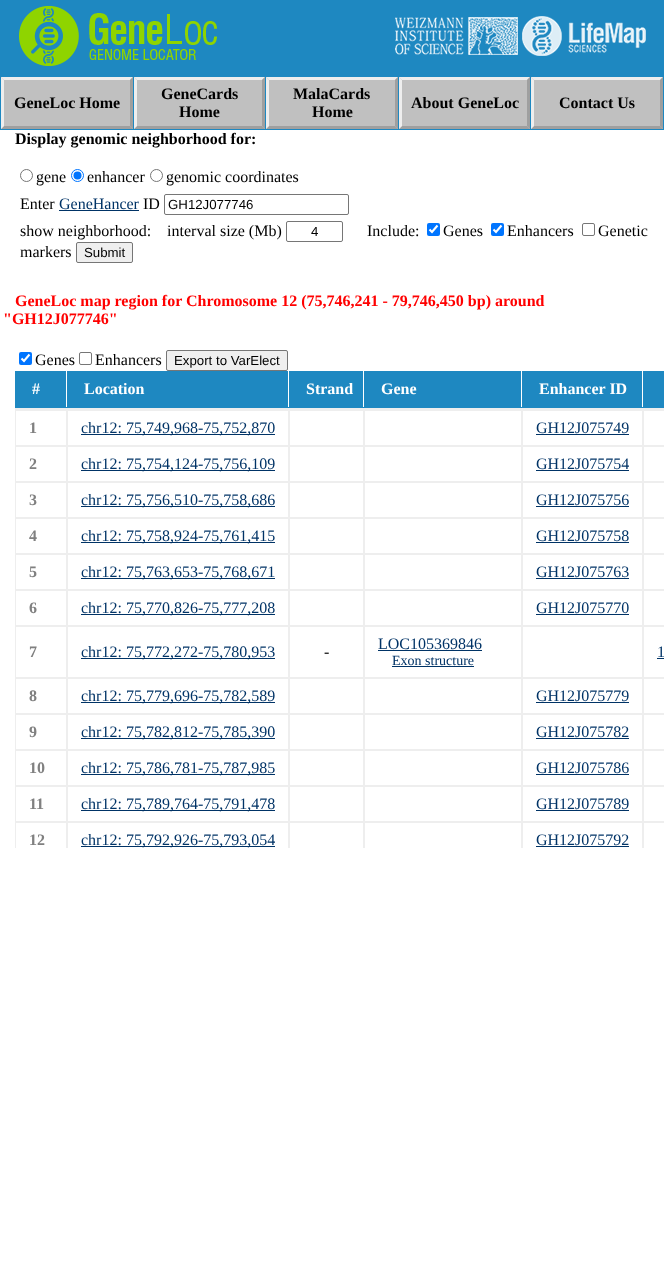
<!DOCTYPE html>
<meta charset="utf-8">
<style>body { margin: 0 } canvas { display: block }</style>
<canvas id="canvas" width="664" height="1280"></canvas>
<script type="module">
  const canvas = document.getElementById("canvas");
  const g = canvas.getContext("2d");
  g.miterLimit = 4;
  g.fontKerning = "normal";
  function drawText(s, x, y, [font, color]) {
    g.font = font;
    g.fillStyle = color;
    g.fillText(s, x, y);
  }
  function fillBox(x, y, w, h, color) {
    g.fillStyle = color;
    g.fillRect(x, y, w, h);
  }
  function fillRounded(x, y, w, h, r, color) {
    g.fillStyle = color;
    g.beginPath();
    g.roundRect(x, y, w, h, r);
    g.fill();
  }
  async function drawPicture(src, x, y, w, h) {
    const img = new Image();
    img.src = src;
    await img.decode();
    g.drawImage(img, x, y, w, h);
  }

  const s1 = ["bold 16px Liberation Serif", "#000000"];
  const s2 = ["16px Liberation Serif", "#000000"];
  const s3 = ["16px Liberation Serif", "#003366"];
  const s4 = ["13.25px Liberation Sans", "#000000"];
  const s5 = ["bold 16px Liberation Serif", "#FF0000"];
  const s6 = ["bold 16px Liberation Serif", "#FFFFFF"];
  const s7 = ["bold 16px Liberation Serif", "#808080"];
  const s8 = ["14px Liberation Serif", "#003366"];

  fillBox(0, 0, 664, 1280, "#FFFFFF");
  fillBox(0, 0, 664, 130, "#1E88C1");
  await drawPicture("pic1.png", 19, 6, 198, 60);
  await drawPicture("pic2.png", 395, 17, 123, 38);
  await drawPicture("pic3.png", 522, 16, 124, 40);
  fillBox(1, 77, 132, 52, "#C0C0C0");
  g.fillStyle = "#EEEEEE";
  g.beginPath();
  g.moveTo(1, 77);
  g.lineTo(133, 77);
  g.lineTo(130, 80);
  g.lineTo(4, 80);
  g.closePath();
  g.fill();
  g.fillStyle = "#9F9F9F";
  g.beginPath();
  g.moveTo(133, 77);
  g.lineTo(133, 129);
  g.lineTo(130, 126);
  g.lineTo(130, 80);
  g.closePath();
  g.fill();
  g.beginPath();
  g.moveTo(133, 129);
  g.lineTo(1, 129);
  g.lineTo(4, 126);
  g.lineTo(130, 126);
  g.closePath();
  g.fill();
  g.fillStyle = "#EEEEEE";
  g.beginPath();
  g.moveTo(1, 129);
  g.lineTo(1, 77);
  g.lineTo(4, 80);
  g.lineTo(4, 126);
  g.closePath();
  g.fill();
  drawText("GeneLoc Home", 14, 108, s1);
  fillBox(134, 77, 131, 52, "#C0C0C0");
  g.fillStyle = "#EEEEEE";
  g.beginPath();
  g.moveTo(134, 77);
  g.lineTo(265, 77);
  g.lineTo(262, 80);
  g.lineTo(137, 80);
  g.closePath();
  g.fill();
  g.fillStyle = "#9F9F9F";
  g.beginPath();
  g.moveTo(265, 77);
  g.lineTo(265, 129);
  g.lineTo(262, 126);
  g.lineTo(262, 80);
  g.closePath();
  g.fill();
  g.beginPath();
  g.moveTo(265, 129);
  g.lineTo(134, 129);
  g.lineTo(137, 126);
  g.lineTo(262, 126);
  g.closePath();
  g.fill();
  g.fillStyle = "#EEEEEE";
  g.beginPath();
  g.moveTo(134, 129);
  g.lineTo(134, 77);
  g.lineTo(137, 80);
  g.lineTo(137, 126);
  g.closePath();
  g.fill();
  drawText("GeneCards", 161, 99, s1);
  drawText("Home", 179, 117, s1);
  fillBox(266, 77, 132, 52, "#C0C0C0");
  g.fillStyle = "#EEEEEE";
  g.beginPath();
  g.moveTo(266, 77);
  g.lineTo(398, 77);
  g.lineTo(395, 80);
  g.lineTo(269, 80);
  g.closePath();
  g.fill();
  g.fillStyle = "#9F9F9F";
  g.beginPath();
  g.moveTo(398, 77);
  g.lineTo(398, 129);
  g.lineTo(395, 126);
  g.lineTo(395, 80);
  g.closePath();
  g.fill();
  g.beginPath();
  g.moveTo(398, 129);
  g.lineTo(266, 129);
  g.lineTo(269, 126);
  g.lineTo(395, 126);
  g.closePath();
  g.fill();
  g.fillStyle = "#EEEEEE";
  g.beginPath();
  g.moveTo(266, 129);
  g.lineTo(266, 77);
  g.lineTo(269, 80);
  g.lineTo(269, 126);
  g.closePath();
  g.fill();
  drawText("MalaCards", 293, 99, s1);
  drawText("Home", 312, 117, s1);
  fillBox(399, 77, 131, 52, "#C0C0C0");
  g.fillStyle = "#EEEEEE";
  g.beginPath();
  g.moveTo(399, 77);
  g.lineTo(530, 77);
  g.lineTo(527, 80);
  g.lineTo(402, 80);
  g.closePath();
  g.fill();
  g.fillStyle = "#9F9F9F";
  g.beginPath();
  g.moveTo(530, 77);
  g.lineTo(530, 129);
  g.lineTo(527, 126);
  g.lineTo(527, 80);
  g.closePath();
  g.fill();
  g.beginPath();
  g.moveTo(530, 129);
  g.lineTo(399, 129);
  g.lineTo(402, 126);
  g.lineTo(527, 126);
  g.closePath();
  g.fill();
  g.fillStyle = "#EEEEEE";
  g.beginPath();
  g.moveTo(399, 129);
  g.lineTo(399, 77);
  g.lineTo(402, 80);
  g.lineTo(402, 126);
  g.closePath();
  g.fill();
  drawText("About GeneLoc", 411, 108, s1);
  fillBox(531, 77, 132, 52, "#C0C0C0");
  g.fillStyle = "#EEEEEE";
  g.beginPath();
  g.moveTo(531, 77);
  g.lineTo(663, 77);
  g.lineTo(660, 80);
  g.lineTo(534, 80);
  g.closePath();
  g.fill();
  g.fillStyle = "#9F9F9F";
  g.beginPath();
  g.moveTo(663, 77);
  g.lineTo(663, 129);
  g.lineTo(660, 126);
  g.lineTo(660, 80);
  g.closePath();
  g.fill();
  g.beginPath();
  g.moveTo(663, 129);
  g.lineTo(531, 129);
  g.lineTo(534, 126);
  g.lineTo(660, 126);
  g.closePath();
  g.fill();
  g.fillStyle = "#EEEEEE";
  g.beginPath();
  g.moveTo(531, 129);
  g.lineTo(531, 77);
  g.lineTo(534, 80);
  g.lineTo(534, 126);
  g.closePath();
  g.fill();
  drawText("Contact Us", 559, 108, s1);
  drawText("Display genomic neighborhood for:", 15, 144, s1);
  g.beginPath();
  g.arc(26.5, 175.5, 6, 0, Math.PI * 2);
  g.strokeStyle = "#767676";
  g.stroke();
  drawText("gene", 36, 182, s2);
  g.beginPath();
  g.arc(77.5, 175.5, 6, 0, Math.PI * 2);
  g.strokeStyle = "#0075FF";
  g.stroke();
  g.fillStyle = "#0075FF";
  g.beginPath();
  g.arc(77.5, 175.5, 4, 0, Math.PI * 2);
  g.fill();
  drawText("enhancer", 87, 182, s2);
  g.beginPath();
  g.arc(156.5, 175.5, 6, 0, Math.PI * 2);
  g.strokeStyle = "#767676";
  g.stroke();
  drawText("genomic coordinates", 166, 182, s2);
  drawText("Enter", 20, 209, s2);
  drawText("GeneHancer", 59, 209, s3);
  fillBox(59, 210, 80, 1, "#003366");
  drawText("ID", 143, 209, s2);
  g.beginPath();
  g.roundRect(164.5, 194.5, 184, 20, 1.5);
  g.stroke();
  drawText("GH12J077746", 168, 209, s4);
  drawText("show neighborhood:    interval size (Mb)", 20, 236, s2);
  g.beginPath();
  g.roundRect(286.5, 221.5, 56, 20, 1.5);
  g.stroke();
  drawText("4", 311, 236, s4);
  drawText("Include:", 367, 236, s2);
  fillRounded(427, 223, 13, 13, 2, "#0075FF");
  g.beginPath();
  g.moveTo(429.5, 229.5);
  g.lineTo(432, 232);
  g.lineTo(437.5, 225.5);
  g.strokeStyle = "#FFFFFF";
  g.lineWidth = 2.1;
  g.stroke();
  drawText("Genes", 443, 236, s2);
  fillRounded(491, 223, 13, 13, 2, "#0075FF");
  g.beginPath();
  g.moveTo(493.5, 229.5);
  g.lineTo(496, 232);
  g.lineTo(501.5, 225.5);
  g.stroke();
  drawText("Enhancers", 507, 236, s2);
  g.beginPath();
  g.roundRect(582.5, 223.5, 12, 12, 1.5);
  g.strokeStyle = "#767676";
  g.lineWidth = 1;
  g.stroke();
  drawText("Genetic", 598, 236, s2);
  drawText("markers", 20, 257, s2);
  g.fillStyle = "#EFEFEF";
  g.beginPath();
  g.roundRect(76.5, 242.5, 56, 20, 1.5);
  g.fill();
  g.stroke();
  drawText("Submit", 84, 257, s4);
  drawText("GeneLoc map region for Chromosome 12 (75,746,241 - 79,746,450 bp) around", 15, 306, s5);
  drawText("\"GH12J077746\"", 3, 324, s5);
  fillRounded(19, 352, 13, 13, 2, "#0075FF");
  g.beginPath();
  g.moveTo(21.5, 358.5);
  g.lineTo(24, 361);
  g.lineTo(29.5, 354.5);
  g.strokeStyle = "#FFFFFF";
  g.lineWidth = 2.1;
  g.stroke();
  drawText("Genes", 35, 365, s2);
  g.beginPath();
  g.roundRect(79.5, 352.5, 12, 12, 1.5);
  g.strokeStyle = "#767676";
  g.lineWidth = 1;
  g.stroke();
  drawText("Enhancers", 95, 365, s2);
  g.fillStyle = "#EFEFEF";
  g.beginPath();
  g.roundRect(166.5, 350.5, 121, 20, 1.5);
  g.fill();
  g.stroke();
  drawText("Export to VarElect", 174, 365, s4);
  fillBox(15, 371, 649, 37, "#1E88C1");
  fillBox(15, 408, 649, 2, "#EEEEEE");
  drawText("#", 32, 394, s6);
  fillBox(66, 371, 1, 36, "#FFFFFF");
  drawText("Location", 84, 394, s6);
  fillBox(288, 371, 1, 36, "#FFFFFF");
  drawText("Strand", 306, 394, s6);
  fillBox(363, 371, 1, 36, "#FFFFFF");
  drawText("Gene", 381, 394, s6);
  fillBox(521, 371, 1, 36, "#FFFFFF");
  drawText("Enhancer ID", 539, 394, s6);
  fillBox(642, 371, 1, 36, "#FFFFFF");
  g.strokeStyle = "#EEEEEE";
  g.strokeRect(15.5, 410.5, 51, 35);
  drawText("1", 29, 433, s7);
  g.strokeRect(67.5, 410.5, 221, 35);
  fillBox(81, 434, 194, 1, "#003366");
  drawText("chr12: 75,749,968-75,752,870", 81, 433, s3);
  g.strokeRect(289.5, 410.5, 74, 35);
  g.strokeRect(364.5, 410.5, 157, 35);
  g.strokeRect(522.5, 410.5, 120, 35);
  drawText("GH12J075749", 536, 433, s3);
  fillBox(536, 434, 93, 1, "#003366");
  g.strokeRect(643.5, 410.5, 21, 35);
  g.strokeRect(15.5, 446.5, 51, 35);
  drawText("2", 29, 469, s7);
  g.strokeRect(67.5, 446.5, 221, 35);
  fillBox(81, 470, 194, 1, "#003366");
  drawText("chr12: 75,754,124-75,756,109", 81, 469, s3);
  g.strokeRect(289.5, 446.5, 74, 35);
  g.strokeRect(364.5, 446.5, 157, 35);
  g.strokeRect(522.5, 446.5, 120, 35);
  drawText("GH12J075754", 536, 469, s3);
  fillBox(536, 470, 93, 1, "#003366");
  g.strokeRect(643.5, 446.5, 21, 35);
  g.strokeRect(15.5, 482.5, 51, 35);
  drawText("3", 29, 505, s7);
  g.strokeRect(67.5, 482.5, 221, 35);
  fillBox(81, 506, 194, 1, "#003366");
  drawText("chr12: 75,756,510-75,758,686", 81, 505, s3);
  g.strokeRect(289.5, 482.5, 74, 35);
  g.strokeRect(364.5, 482.5, 157, 35);
  g.strokeRect(522.5, 482.5, 120, 35);
  drawText("GH12J075756", 536, 505, s3);
  fillBox(536, 506, 93, 1, "#003366");
  g.strokeRect(643.5, 482.5, 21, 35);
  g.strokeRect(15.5, 518.5, 51, 35);
  drawText("4", 29, 541, s7);
  g.strokeRect(67.5, 518.5, 221, 35);
  fillBox(81, 542, 194, 1, "#003366");
  drawText("chr12: 75,758,924-75,761,415", 81, 541, s3);
  g.strokeRect(289.5, 518.5, 74, 35);
  g.strokeRect(364.5, 518.5, 157, 35);
  g.strokeRect(522.5, 518.5, 120, 35);
  drawText("GH12J075758", 536, 541, s3);
  fillBox(536, 542, 93, 1, "#003366");
  g.strokeRect(643.5, 518.5, 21, 35);
  g.strokeRect(15.5, 554.5, 51, 35);
  drawText("5", 29, 577, s7);
  g.strokeRect(67.5, 554.5, 221, 35);
  fillBox(81, 578, 194, 1, "#003366");
  drawText("chr12: 75,763,653-75,768,671", 81, 577, s3);
  g.strokeRect(289.5, 554.5, 74, 35);
  g.strokeRect(364.5, 554.5, 157, 35);
  g.strokeRect(522.5, 554.5, 120, 35);
  drawText("GH12J075763", 536, 577, s3);
  fillBox(536, 578, 93, 1, "#003366");
  g.strokeRect(643.5, 554.5, 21, 35);
  g.strokeRect(15.5, 590.5, 51, 35);
  drawText("6", 29, 613, s7);
  g.strokeRect(67.5, 590.5, 221, 35);
  fillBox(81, 614, 194, 1, "#003366");
  drawText("chr12: 75,770,826-75,777,208", 81, 613, s3);
  g.strokeRect(289.5, 590.5, 74, 35);
  g.strokeRect(364.5, 590.5, 157, 35);
  g.strokeRect(522.5, 590.5, 120, 35);
  drawText("GH12J075770", 536, 613, s3);
  fillBox(536, 614, 93, 1, "#003366");
  g.strokeRect(643.5, 590.5, 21, 35);
  g.strokeRect(15.5, 626.5, 51, 51);
  drawText("7", 29, 657, s7);
  g.strokeRect(67.5, 626.5, 221, 51);
  fillBox(81, 658, 194, 1, "#003366");
  drawText("chr12: 75,772,272-75,780,953", 81, 657, s3);
  g.strokeRect(289.5, 626.5, 74, 51);
  drawText("-", 324, 657, s2);
  g.strokeRect(364.5, 626.5, 157, 51);
  drawText("LOC105369846", 378, 649, s3);
  fillBox(378, 650, 104, 1, "#003366");
  drawText("Exon structure", 392, 665, s8);
  fillBox(392, 666, 82, 1, "#003366");
  g.strokeRect(522.5, 626.5, 120, 51);
  g.strokeRect(643.5, 626.5, 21, 51);
  drawText("1", 657, 657, s3);
  fillBox(657, 658, 7, 1, "#003366");
  g.strokeRect(15.5, 678.5, 51, 35);
  drawText("8", 29, 701, s7);
  g.strokeRect(67.5, 678.5, 221, 35);
  fillBox(81, 702, 194, 1, "#003366");
  drawText("chr12: 75,779,696-75,782,589", 81, 701, s3);
  g.strokeRect(289.5, 678.5, 74, 35);
  g.strokeRect(364.5, 678.5, 157, 35);
  g.strokeRect(522.5, 678.5, 120, 35);
  drawText("GH12J075779", 536, 701, s3);
  fillBox(536, 702, 93, 1, "#003366");
  g.strokeRect(643.5, 678.5, 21, 35);
  g.strokeRect(15.5, 714.5, 51, 35);
  drawText("9", 29, 737, s7);
  g.strokeRect(67.5, 714.5, 221, 35);
  fillBox(81, 738, 194, 1, "#003366");
  drawText("chr12: 75,782,812-75,785,390", 81, 737, s3);
  g.strokeRect(289.5, 714.5, 74, 35);
  g.strokeRect(364.5, 714.5, 157, 35);
  g.strokeRect(522.5, 714.5, 120, 35);
  drawText("GH12J075782", 536, 737, s3);
  fillBox(536, 738, 93, 1, "#003366");
  g.strokeRect(643.5, 714.5, 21, 35);
  g.strokeRect(15.5, 750.5, 51, 35);
  drawText("10", 29, 773, s7);
  g.strokeRect(67.5, 750.5, 221, 35);
  fillBox(81, 774, 194, 1, "#003366");
  drawText("chr12: 75,786,781-75,787,985", 81, 773, s3);
  g.strokeRect(289.5, 750.5, 74, 35);
  g.strokeRect(364.5, 750.5, 157, 35);
  g.strokeRect(522.5, 750.5, 120, 35);
  drawText("GH12J075786", 536, 773, s3);
  fillBox(536, 774, 93, 1, "#003366");
  g.strokeRect(643.5, 750.5, 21, 35);
  g.strokeRect(15.5, 786.5, 51, 35);
  drawText("11", 29, 809, s7);
  g.strokeRect(67.5, 786.5, 221, 35);
  fillBox(81, 810, 194, 1, "#003366");
  drawText("chr12: 75,789,764-75,791,478", 81, 809, s3);
  g.strokeRect(289.5, 786.5, 74, 35);
  g.strokeRect(364.5, 786.5, 157, 35);
  g.strokeRect(522.5, 786.5, 120, 35);
  drawText("GH12J075789", 536, 809, s3);
  fillBox(536, 810, 93, 1, "#003366");
  g.strokeRect(643.5, 786.5, 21, 35);
  g.save();
  g.beginPath();
  g.rect(15, 408, 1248, 440);
  g.clip();
  g.strokeRect(15.5, 822.5, 51, 35);
  g.restore();
  drawText("12", 29, 845, s7);
  g.save();
  g.beginPath();
  g.rect(15, 408, 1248, 440);
  g.clip();
  g.strokeRect(67.5, 822.5, 221, 35);
  g.restore();
  fillBox(81, 846, 194, 1, "#003366");
  drawText("chr12: 75,792,926-75,793,054", 81, 845, s3);
  g.save();
  g.beginPath();
  g.rect(15, 408, 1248, 440);
  g.clip();
  g.strokeRect(289.5, 822.5, 74, 35);
  g.strokeRect(364.5, 822.5, 157, 35);
  g.strokeRect(522.5, 822.5, 120, 35);
  g.restore();
  drawText("GH12J075792", 536, 845, s3);
  fillBox(536, 846, 93, 1, "#003366");
  g.save();
  g.beginPath();
  g.rect(15, 408, 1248, 440);
  g.clip();
  g.strokeRect(643.5, 822.5, 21, 35);
  g.restore();
</script>
